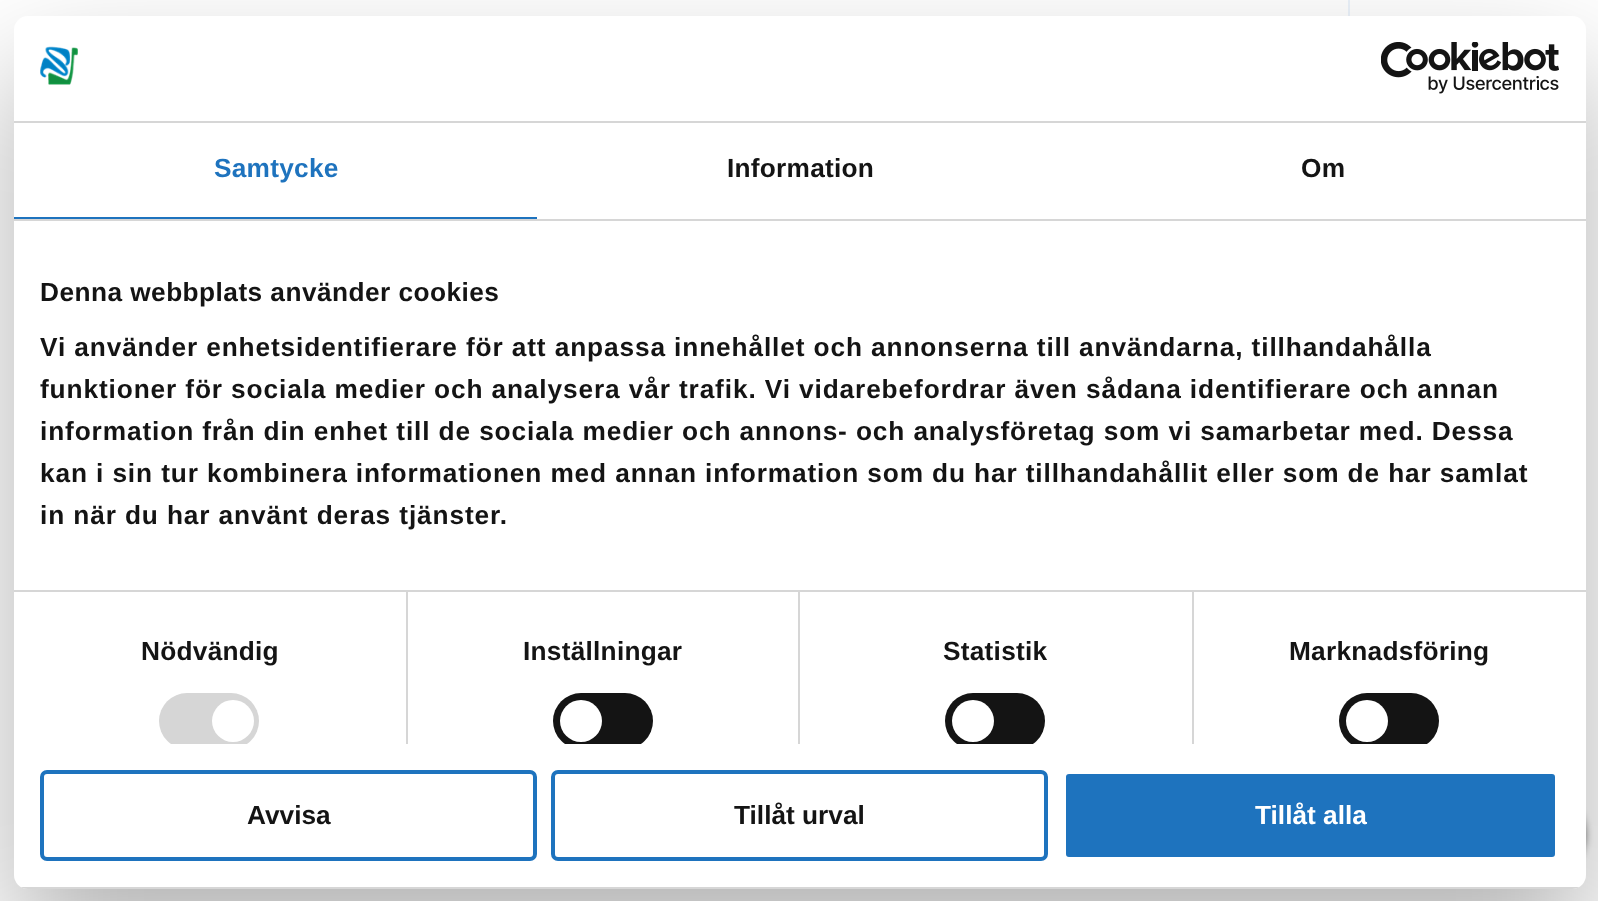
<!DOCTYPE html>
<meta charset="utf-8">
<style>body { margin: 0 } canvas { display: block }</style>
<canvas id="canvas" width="1598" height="901"></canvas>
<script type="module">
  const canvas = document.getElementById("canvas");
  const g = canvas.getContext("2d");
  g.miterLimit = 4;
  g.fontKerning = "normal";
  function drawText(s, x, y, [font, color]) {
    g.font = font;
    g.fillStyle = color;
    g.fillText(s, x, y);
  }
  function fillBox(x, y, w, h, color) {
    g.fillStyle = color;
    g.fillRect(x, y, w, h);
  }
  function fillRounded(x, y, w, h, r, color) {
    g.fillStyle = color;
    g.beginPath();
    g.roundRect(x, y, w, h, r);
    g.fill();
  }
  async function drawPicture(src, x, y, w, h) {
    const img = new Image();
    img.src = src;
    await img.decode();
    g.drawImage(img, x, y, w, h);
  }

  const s1 = ["bold 26.25px Liberation Sans", "#1E73BE"];
  const s2 = ["bold 26.25px Liberation Sans", "#141414"];
  const s3 = ["bold 26.25px Liberation Sans", "#FFFFFF"];

  fillBox(0, 0, 1598, 901, "#FFFFFF");
  fillBox(1348, 0, 2, 16, "#ECF3FB");
  g.fillStyle = "rgba(0, 0, 0, 0.3)";
  g.filter = "blur(59.5px)";
  g.beginPath();
  g.roundRect(14, 72, 1572, 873, 14);
  g.fill();
  g.filter = "none";
  g.fillStyle = "rgba(0, 0, 0, 0.5)";
  g.filter = "blur(3.5px)";
  g.beginPath();
  g.roundRect(1412, 793, 174, 84, 42);
  g.fill();
  g.filter = "none";
  fillRounded(14, 16, 1572, 873, 14, "#FFFFFF");
  fillBox(14, 121, 1572, 2, "#D6D6D6");
  await drawPicture("pic1.png", 40, 46, 38, 39);
  await drawPicture("pic2.png", 1381, 42, 178, 52);
  fillBox(14, 219, 1572, 2, "#D6D6D6");
  fillBox(14, 217, 523, 2, "#1E73BE");
  g.letterSpacing = "0.25px";
  drawText("Samtycke", 214, 177, s1);
  drawText("Information", 727, 177, s2);
  drawText("Om", 1301, 177, s2);
  fillBox(14, 590, 1572, 2, "#D6D6D6");
  g.letterSpacing = "0.45px";
  drawText("Denna webbplats använder cookies", 40, 301, s2);
  g.letterSpacing = "0.88px";
  drawText("Vi använder enhetsidentifierare för att anpassa innehållet och annonserna till användarna, tillhandahålla", 40, 356, s2);
  drawText("funktioner för sociala medier och analysera vår trafik. Vi vidarebefordrar även sådana identifierare och annan", 40, 398, s2);
  drawText("information från din enhet till de sociala medier och annons- och analysföretag som vi samarbetar med. Dessa", 40, 440, s2);
  drawText("kan i sin tur kombinera informationen med annan information som du har tillhandahållit eller som de har samlat", 40, 482, s2);
  drawText("in när du har använt deras tjänster.", 40, 524, s2);
  fillBox(406, 592, 2, 152, "#D6D6D6");
  g.letterSpacing = "0.25px";
  drawText("Nödvändig", 141, 660, s2);
  g.save();
  g.beginPath();
  g.rect(14, 221, 1572, 523);
  g.clip();
  fillRounded(159, 693, 100, 56, 28, "#D6D6D6");
  g.restore();
  g.fillStyle = "#FFFFFF";
  g.beginPath();
  g.arc(233, 721, 21, 0, Math.PI * 2);
  g.fill();
  fillBox(798, 592, 2, 152, "#D6D6D6");
  drawText("Inställningar", 523, 660, s2);
  g.save();
  g.beginPath();
  g.rect(14, 221, 1572, 523);
  g.clip();
  fillRounded(553, 693, 100, 56, 28, "#141414");
  g.restore();
  g.fillStyle = "#FFFFFF";
  g.beginPath();
  g.arc(581, 721, 21, 0, Math.PI * 2);
  g.fill();
  fillBox(1192, 592, 2, 152, "#D6D6D6");
  drawText("Statistik", 943, 660, s2);
  g.save();
  g.beginPath();
  g.rect(14, 221, 1572, 523);
  g.clip();
  fillRounded(945, 693, 100, 56, 28, "#141414");
  g.restore();
  g.fillStyle = "#FFFFFF";
  g.beginPath();
  g.arc(973, 721, 21, 0, Math.PI * 2);
  g.fill();
  drawText("Marknadsföring", 1289, 660, s2);
  g.save();
  g.beginPath();
  g.rect(14, 221, 1572, 523);
  g.clip();
  fillRounded(1339, 693, 100, 56, 28, "#141414");
  g.restore();
  g.fillStyle = "#FFFFFF";
  g.beginPath();
  g.arc(1367, 721, 21, 0, Math.PI * 2);
  g.fill();
  g.save();
  g.beginPath();
  g.roundRect(14, 16, 1572, 873, 14);
  g.clip();
  fillBox(14, 887, 1572, 2, "#D6D6D6");
  g.restore();
  g.beginPath();
  g.roundRect(42, 772, 493, 87, 5);
  g.strokeStyle = "#1E73BE";
  g.lineWidth = 4;
  g.stroke();
  g.letterSpacing = "0px";
  drawText("Avvisa", 247, 824, s2);
  g.beginPath();
  g.roundRect(553, 772, 493, 87, 5);
  g.stroke();
  drawText("Tillåt urval", 734, 824, s2);
  g.fillStyle = "#1E73BE";
  g.beginPath();
  g.roundRect(1064, 772, 493, 87, 5);
  g.fill();
  g.strokeStyle = "#FFFFFF";
  g.stroke();
  drawText("Tillåt alla", 1255, 824, s3);
</script>
